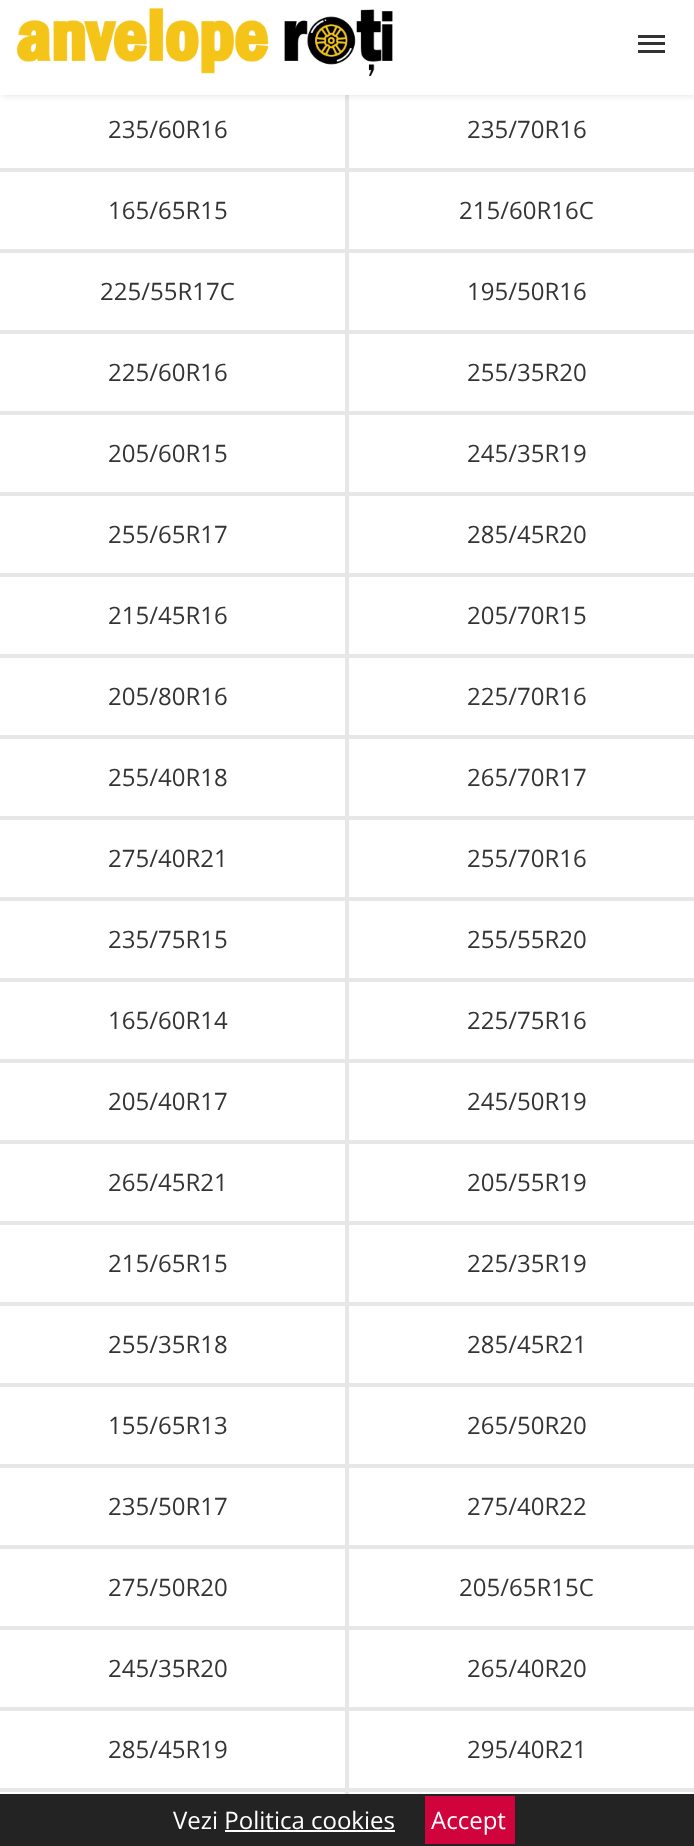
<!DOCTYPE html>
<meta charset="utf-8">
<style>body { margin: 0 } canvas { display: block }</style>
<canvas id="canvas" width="694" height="1846"></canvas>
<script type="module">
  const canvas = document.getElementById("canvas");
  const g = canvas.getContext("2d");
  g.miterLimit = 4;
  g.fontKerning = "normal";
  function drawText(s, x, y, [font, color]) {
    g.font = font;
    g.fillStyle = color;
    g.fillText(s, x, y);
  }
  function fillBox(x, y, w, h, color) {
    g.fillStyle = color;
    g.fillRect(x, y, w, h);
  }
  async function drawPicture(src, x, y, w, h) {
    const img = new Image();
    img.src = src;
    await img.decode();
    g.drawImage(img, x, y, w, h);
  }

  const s1 = ["24px Open Sans", "#343434"];
  const s2 = ["24px Open Sans", "#FFFFFF"];

  fillBox(0, 0, 694, 1846, "#FFFFFF");
  g.strokeStyle = "#E8E7E7";
  g.lineWidth = 2;
  g.strokeRect(-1, 90, 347, 79);
  g.strokeRect(348, 90, 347, 79);
  g.fillStyle = "rgba(0, 0, 0, 0.1)";
  g.filter = "blur(3px)";
  g.beginPath();
  g.rect(2, 2, 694, 94);
  g.fill();
  g.filter = "none";
  fillBox(0, 0, 694, 95, "#FFFFFF");
  await drawPicture("pic1.png", 16, 8, 377, 68);
  fillBox(638, 42, 27, 3, "#333333");
  fillBox(638, 35, 27, 3, "#333333");
  fillBox(638, 50, 27, 3, "#333333");
  drawText("235/60R16", 108, 138, s1);
  drawText("235/70R16", 467, 138, s1);
  g.strokeRect(-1, 171, 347, 79);
  drawText("165/65R15", 108, 219, s1);
  g.strokeRect(348, 171, 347, 79);
  drawText("215/60R16C", 459, 219, s1);
  g.strokeRect(-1, 252, 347, 79);
  drawText("225/55R17C", 100, 300, s1);
  g.strokeRect(348, 252, 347, 79);
  drawText("195/50R16", 467, 300, s1);
  g.strokeRect(-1, 333, 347, 79);
  drawText("225/60R16", 108, 381, s1);
  g.strokeRect(348, 333, 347, 79);
  drawText("255/35R20", 467, 381, s1);
  g.strokeRect(-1, 414, 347, 79);
  drawText("205/60R15", 108, 462, s1);
  g.strokeRect(348, 414, 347, 79);
  drawText("245/35R19", 467, 462, s1);
  g.strokeRect(-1, 495, 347, 79);
  drawText("255/65R17", 108, 543, s1);
  g.strokeRect(348, 495, 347, 79);
  drawText("285/45R20", 467, 543, s1);
  g.strokeRect(-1, 576, 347, 79);
  drawText("215/45R16", 108, 624, s1);
  g.strokeRect(348, 576, 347, 79);
  drawText("205/70R15", 467, 624, s1);
  g.strokeRect(-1, 657, 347, 79);
  drawText("205/80R16", 108, 705, s1);
  g.strokeRect(348, 657, 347, 79);
  drawText("225/70R16", 467, 705, s1);
  g.strokeRect(-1, 738, 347, 79);
  drawText("255/40R18", 108, 786, s1);
  g.strokeRect(348, 738, 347, 79);
  drawText("265/70R17", 467, 786, s1);
  g.strokeRect(-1, 819, 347, 79);
  drawText("275/40R21", 108, 867, s1);
  g.strokeRect(348, 819, 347, 79);
  drawText("255/70R16", 467, 867, s1);
  g.strokeRect(-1, 900, 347, 79);
  drawText("235/75R15", 108, 948, s1);
  g.strokeRect(348, 900, 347, 79);
  drawText("255/55R20", 467, 948, s1);
  g.strokeRect(-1, 981, 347, 79);
  drawText("165/60R14", 108, 1029, s1);
  g.strokeRect(348, 981, 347, 79);
  drawText("225/75R16", 467, 1029, s1);
  g.strokeRect(-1, 1062, 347, 79);
  drawText("205/40R17", 108, 1110, s1);
  g.strokeRect(348, 1062, 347, 79);
  drawText("245/50R19", 467, 1110, s1);
  g.strokeRect(-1, 1143, 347, 79);
  drawText("265/45R21", 108, 1191, s1);
  g.strokeRect(348, 1143, 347, 79);
  drawText("205/55R19", 467, 1191, s1);
  g.strokeRect(-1, 1224, 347, 79);
  drawText("215/65R15", 108, 1272, s1);
  g.strokeRect(348, 1224, 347, 79);
  drawText("225/35R19", 467, 1272, s1);
  g.strokeRect(-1, 1305, 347, 79);
  drawText("255/35R18", 108, 1353, s1);
  g.strokeRect(348, 1305, 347, 79);
  drawText("285/45R21", 467, 1353, s1);
  g.strokeRect(-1, 1386, 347, 79);
  drawText("155/65R13", 108, 1434, s1);
  g.strokeRect(348, 1386, 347, 79);
  drawText("265/50R20", 467, 1434, s1);
  g.strokeRect(-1, 1467, 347, 79);
  drawText("235/50R17", 108, 1515, s1);
  g.strokeRect(348, 1467, 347, 79);
  drawText("275/40R22", 467, 1515, s1);
  g.strokeRect(-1, 1548, 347, 79);
  drawText("275/50R20", 108, 1596, s1);
  g.strokeRect(348, 1548, 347, 79);
  drawText("205/65R15C", 459, 1596, s1);
  g.strokeRect(-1, 1629, 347, 79);
  drawText("245/35R20", 108, 1677, s1);
  g.strokeRect(348, 1629, 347, 79);
  drawText("265/40R20", 467, 1677, s1);
  g.strokeRect(-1, 1710, 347, 79);
  drawText("285/45R19", 108, 1758, s1);
  g.strokeRect(348, 1710, 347, 79);
  drawText("295/40R21", 467, 1758, s1);
  g.strokeRect(-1, 1791, 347, 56);
  g.strokeRect(348, 1791, 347, 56);
  fillBox(0, 1794, 694, 52, "#232323");
  drawText("Vezi Politica cookies", 173, 1829, s2);
  fillBox(225, 1830, 170, 2, "#FFFFFF");
  fillBox(425, 1796, 90, 48, "#D0033C");
  drawText("Accept", 431, 1829, s2);
</script>
